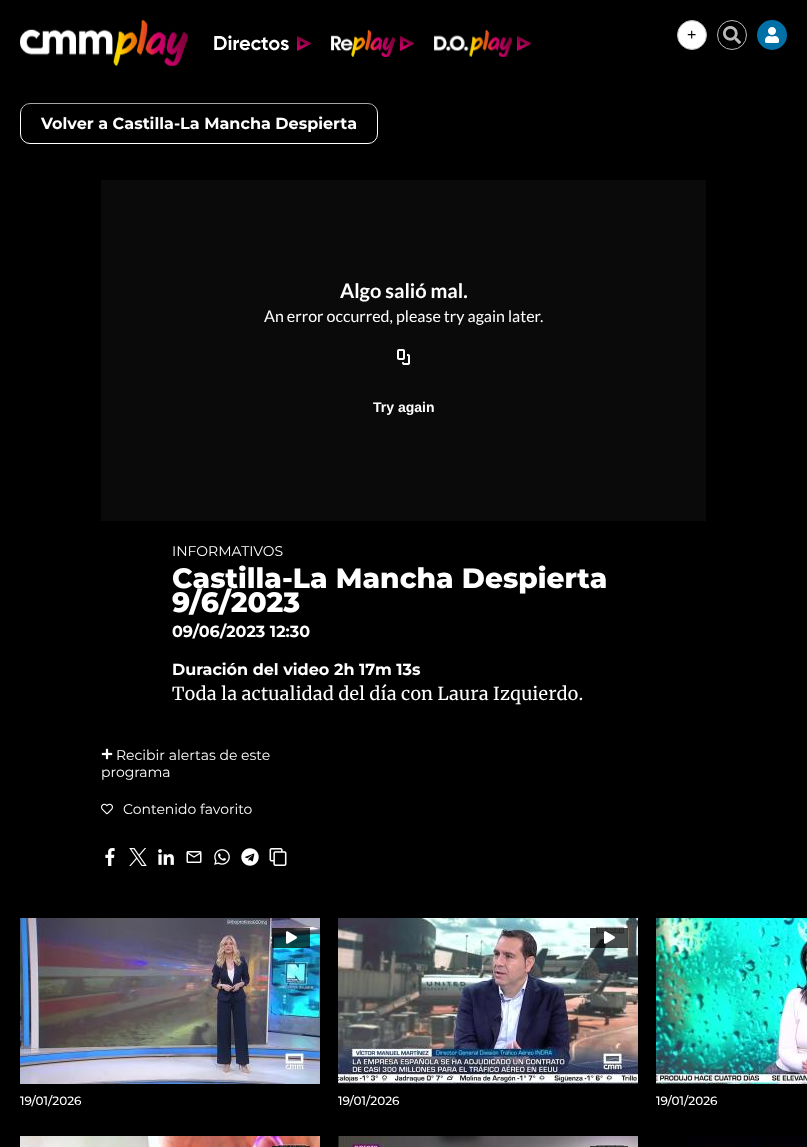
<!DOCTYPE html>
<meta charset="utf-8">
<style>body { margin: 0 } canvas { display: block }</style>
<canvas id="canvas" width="807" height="1147"></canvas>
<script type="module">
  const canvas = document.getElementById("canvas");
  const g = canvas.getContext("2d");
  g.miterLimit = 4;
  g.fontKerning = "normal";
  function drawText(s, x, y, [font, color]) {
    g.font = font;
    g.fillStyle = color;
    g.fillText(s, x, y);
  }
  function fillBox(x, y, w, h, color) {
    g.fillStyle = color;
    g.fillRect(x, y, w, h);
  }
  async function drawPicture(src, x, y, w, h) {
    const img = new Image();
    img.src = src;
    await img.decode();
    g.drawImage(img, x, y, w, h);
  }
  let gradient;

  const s1 = ["16px Liberation Sans", "#000000"];
  const s2 = ["bold 16px Montserrat", "#FFFFFF"];
  const s3 = ["bold 20px Lato", "#FFFFFF"];
  const s4 = ["16px Lato", "#FFFFFF"];
  const s5 = ["bold 14px Liberation Sans", "#FFFFFF"];
  const s6 = ["14px Montserrat", "#FFFFFF"];
  const s7 = ["800 28px Montserrat", "#FFFFFF"];
  const s8 = ["18px Merriweather", "#FFFFFF"];
  const s9 = ["500 12px Montserrat", "#FFFFFF"];

  fillBox(0, 0, 807, 1147, "#000000");
  g.beginPath();
  g.roundRect(20.5, 103.5, 357, 40, 9.5);
  g.strokeStyle = "#FFFFFF";
  g.stroke();
  gradient = g.createLinearGradient(404, 116, 404, 0);
  gradient.addColorStop(0, "rgba(0, 0, 0, 0)");
  gradient.addColorStop(0.28, "rgba(0, 0, 0, 0.91)");
  gradient.addColorStop(1, "#000000");
  g.fillStyle = gradient;
  g.fillRect(20, 103, 358, 12);
  await drawPicture("pic1.png", 20, 20, 168, 46);
  await drawPicture("pic2.png", 214, 35, 75, 16);
  await drawPicture("pic3.png", 297, 36, 14, 15);
  await drawPicture("pic4.png", 331, 30, 64, 27);
  await drawPicture("pic3.png", 400, 36, 14, 15);
  await drawPicture("pic5.png", 434, 30, 78, 27);
  await drawPicture("pic3.png", 517, 36, 14, 15);
  g.fillStyle = "#FFFFFF";
  g.beginPath();
  g.arc(692, 35, 14.5, 0, Math.PI * 2);
  g.fill();
  g.strokeStyle = "#BABABA";
  g.stroke();
  drawText("+", 687, 40, s1);
  g.beginPath();
  g.arc(732, 35, 14.5, 0, Math.PI * 2);
  g.stroke();
  await drawPicture("pic6.png", 723, 26, 18, 18);
  g.fillStyle = "#0070A7";
  g.beginPath();
  g.arc(772, 35, 15, 0, Math.PI * 2);
  g.fill();
  await drawPicture("pic7.png", 765, 27, 14, 16);
  drawText("Volver a Castilla-La Mancha Despierta", 41, 129, s2);
  fillBox(101, 180, 605, 341, "#0A0A0A");
  drawText("Algo salió mal.", 340, 298, s3);
  drawText("An error occurred, please try again later.", 264, 322, s4);
  await drawPicture("pic8.png", 397, 349, 13, 16);
  drawText("Try again", 373, 412, s5);
  drawText("INFORMATIVOS", 172, 556, s6);
  drawText("Castilla-La Mancha Despierta", 172, 588, s7);
  drawText("9/6/2023", 172, 612, s7);
  drawText("09/06/2023 12:30", 172, 637, s2);
  drawText("Duración del video", 172, 675, s2);
  drawText("2h 17m 13s", 334, 675, s2);
  drawText("Toda la actualidad del día con Laura Izquierdo.", 172, 700, s8);
  await drawPicture("pic9.png", 101, 748, 12, 12);
  drawText("Recibir alertas de este", 116, 760, s6);
  drawText("programa", 101, 777, s6);
  await drawPicture("pic10.png", 101, 803, 12, 12);
  drawText("Contenido favorito", 123, 814, s6);
  await drawPicture("pic11.png", 105, 848, 10, 18);
  await drawPicture("pic12.png", 129, 848, 18, 18);
  await drawPicture("pic13.png", 158, 849, 16, 16);
  await drawPicture("pic14.png", 186, 851, 16, 12);
  await drawPicture("pic15.png", 214, 849, 16, 16);
  await drawPicture("pic16.png", 241, 848, 18, 18);
  await drawPicture("pic17.png", 269, 848, 18, 18);
  await drawPicture("pic18.png", 20, 918, 300, 166);
  fillBox(272, 928, 38, 20, "rgba(0, 0, 0, 0.7)");
  await drawPicture("pic19.png", 286, 931, 11, 13);
  drawText("19/01/2026", 20, 1105, s9);
  await drawPicture("pic20.png", 338, 918, 300, 166);
  fillBox(590, 928, 38, 20, "rgba(0, 0, 0, 0.7)");
  await drawPicture("pic21.png", 604, 931, 11, 13);
  drawText("19/01/2026", 338, 1105, s9);
  await drawPicture("pic22.png", 656, 918, 151, 166);
  drawText("19/01/2026", 656, 1105, s9);
  await drawPicture("pic23.png", 20, 1136, 300, 11);
  fillBox(272, 1146, 38, 1, "rgba(0, 0, 0, 0.7)");
  await drawPicture("pic24.png", 338, 1136, 300, 11);
  fillBox(590, 1146, 38, 1, "rgba(0, 0, 0, 0.7)");
  await drawPicture("pic25.png", 688, 1136, 119, 11);
</script>
